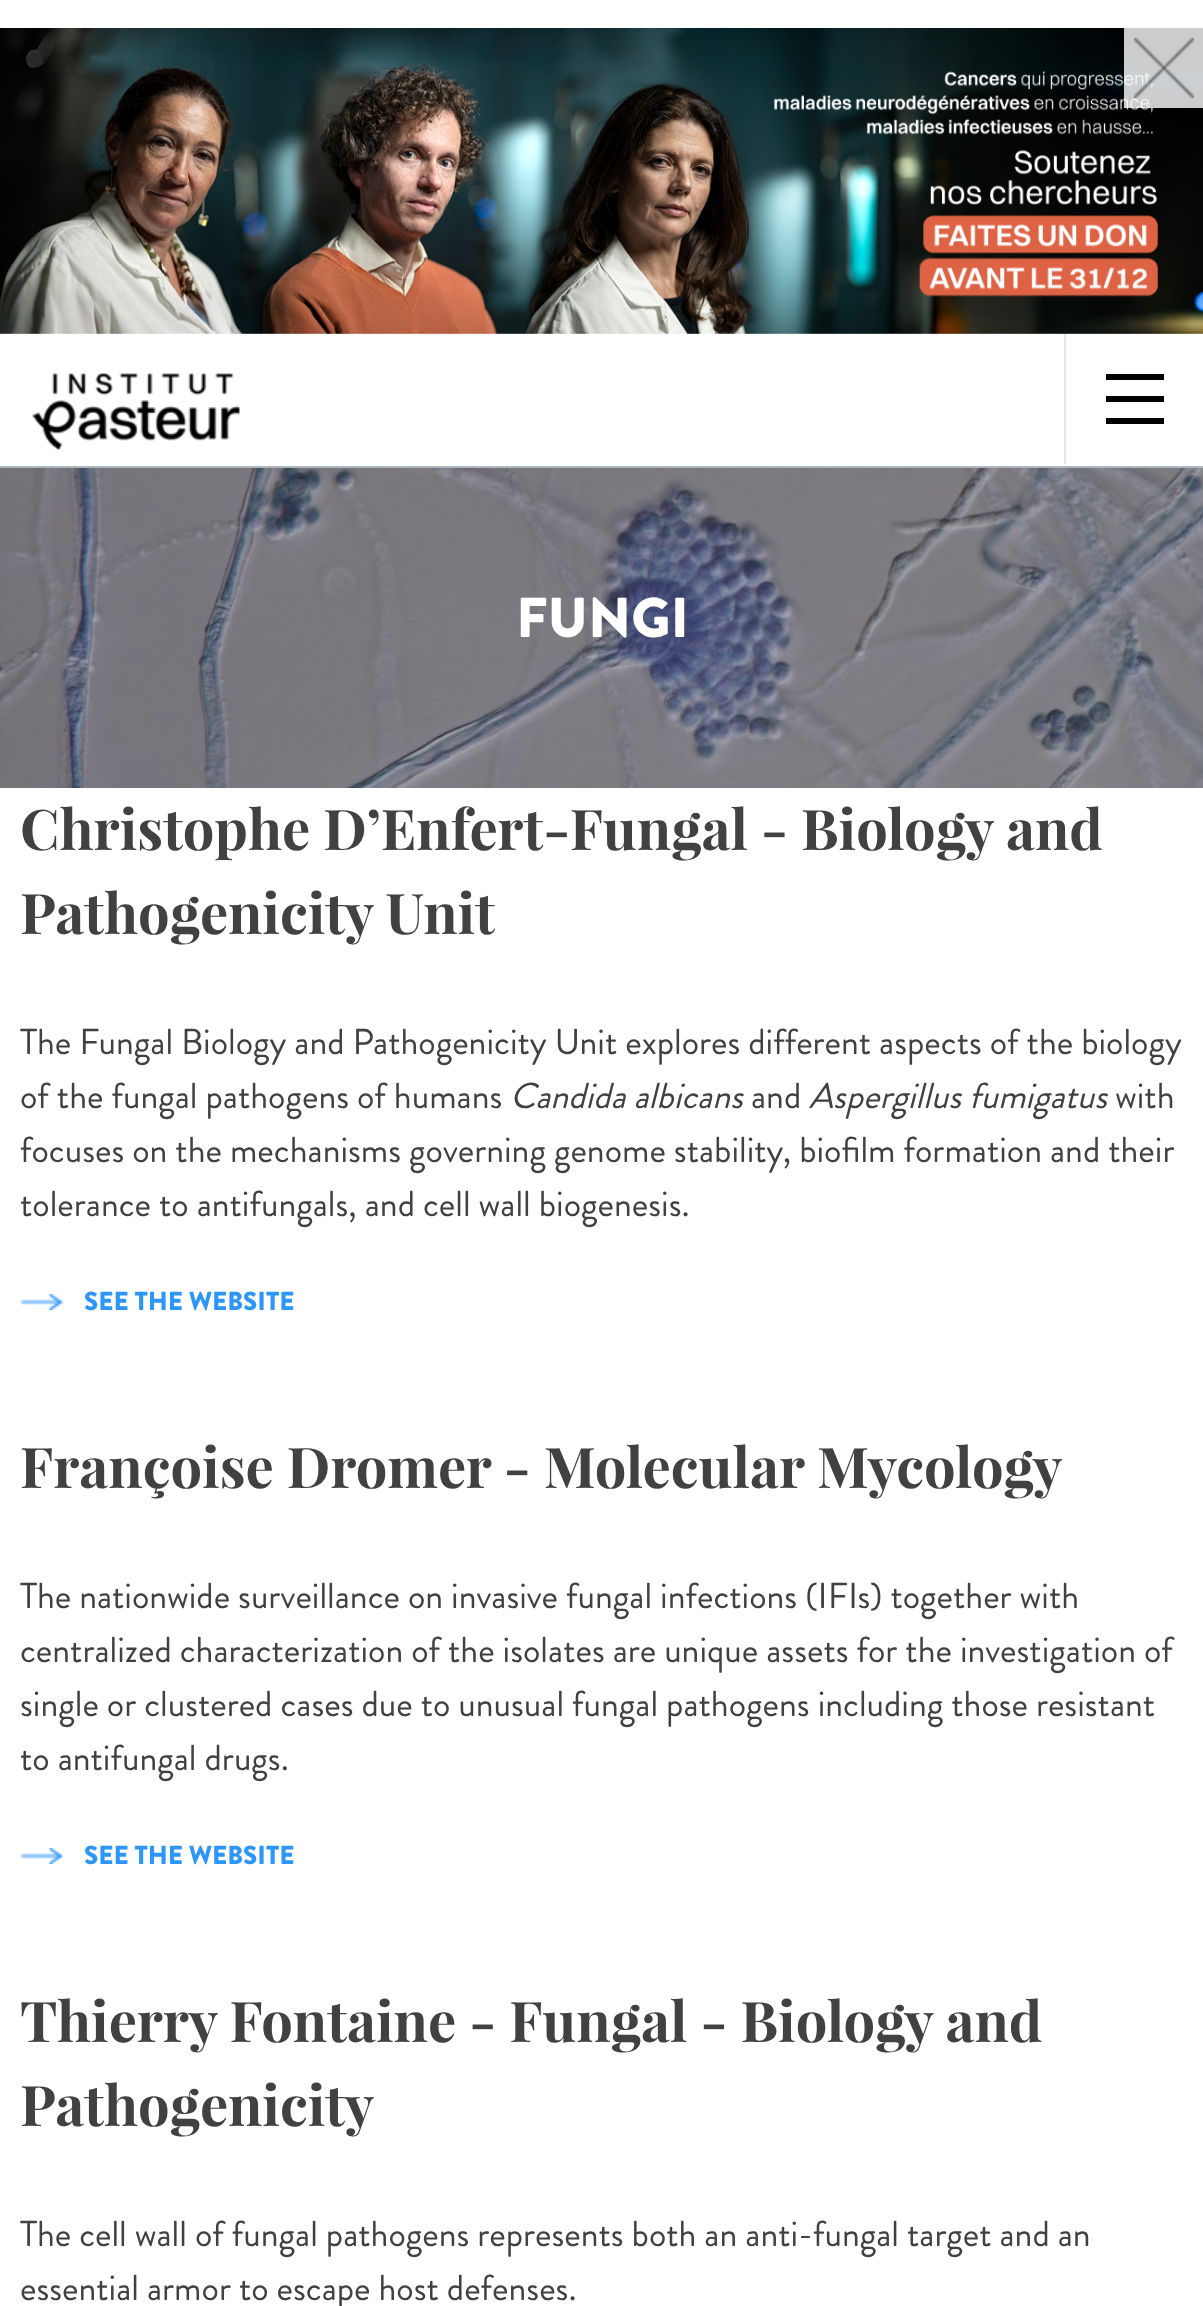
<!DOCTYPE html>
<meta charset="utf-8">
<style>body { margin: 0 } canvas { display: block }</style>
<canvas id="canvas" width="1203" height="2306"></canvas>
<script type="module">
  const canvas = document.getElementById("canvas");
  const g = canvas.getContext("2d");
  g.miterLimit = 4;
  g.fontKerning = "normal";
  function drawText(s, x, y, [font, color]) {
    g.font = font;
    g.fillStyle = color;
    g.fillText(s, x, y);
  }
  function fillBox(x, y, w, h, color) {
    g.fillStyle = color;
    g.fillRect(x, y, w, h);
  }
  async function drawPicture(src, x, y, w, h) {
    const img = new Image();
    img.src = src;
    await img.decode();
    g.drawImage(img, x, y, w, h);
  }

  const s1 = ["900 56px Brandon Grotesque", "#FFFFFF"];
  const s2 = ["bold 56px Playfair Display", "#414144"];
  const s3 = ["36px Brandon Grotesque", "#414144"];
  const s4 = ["italic 36px Brandon Grotesque", "#414144"];
  const s5 = ["900 26px Brandon Grotesque", "#2D96FA"];

  fillBox(0, 0, 1203, 2306, "#FFFFFF");
  await drawPicture("pic1.png", 0, 28, 1203, 306);
  fillBox(1124, 28, 79, 80, "rgba(255, 255, 255, 0.8)");
  await drawPicture("pic2.png", 1134, 38, 60, 60);
  fillBox(0, 466, 1203, 2, "#AEB7C0");
  await drawPicture("pic3.png", 32, 373, 208, 77);
  fillBox(1064, 334, 2, 130, "#E3E9EB");
  fillBox(1106, 396, 58, 6, "#000000");
  fillBox(1106, 374, 58, 6, "#000000");
  fillBox(1106, 418, 58, 6, "#000000");
  await drawPicture("pic4.png", 0, 468, 1203, 320);
  drawText("FUNGI", 516, 637, s1);
  drawText("Christophe D’Enfert-Fungal - Biology and", 20, 850, s2);
  drawText("Pathogenicity Unit", 20, 934, s2);
  drawText("The Fungal Biology and Pathogenicity Unit explores different aspects of the biology", 20, 1054, s3);
  drawText("of the fungal pathogens of humans", 20, 1108, s3);
  drawText("Candida albicans", 510, 1108, s4);
  drawText("and", 751, 1108, s3);
  drawText("Aspergillus fumigatus", 809, 1108, s4);
  drawText("with", 1115, 1108, s3);
  drawText("focuses on the mechanisms governing genome stability, biofilm formation and their", 20, 1162, s3);
  drawText("tolerance to antifungals, and cell wall biogenesis.", 20, 1216, s3);
  await drawPicture("pic5.png", 20, 1294, 44, 16);
  drawText("SEE THE WEBSITE", 84, 1310, s5);
  drawText("Françoise Dromer - Molecular Mycology", 20, 1488, s2);
  drawText("The nationwide surveillance on invasive fungal infections (IFIs) together with", 20, 1608, s3);
  drawText("centralized characterization of the isolates are unique assets for the investigation of", 20, 1662, s3);
  drawText("single or clustered cases due to unusual fungal pathogens including those resistant", 20, 1716, s3);
  drawText("to antifungal drugs.", 20, 1770, s3);
  await drawPicture("pic5.png", 20, 1848, 44, 16);
  drawText("SEE THE WEBSITE", 84, 1864, s5);
  drawText("Thierry Fontaine - Fungal - Biology and", 20, 2042, s2);
  drawText("Pathogenicity", 20, 2126, s2);
  drawText("The cell wall of fungal pathogens represents both an anti-fungal target and an", 20, 2246, s3);
  drawText("essential armor to escape host defenses.", 20, 2300, s3);
</script>
